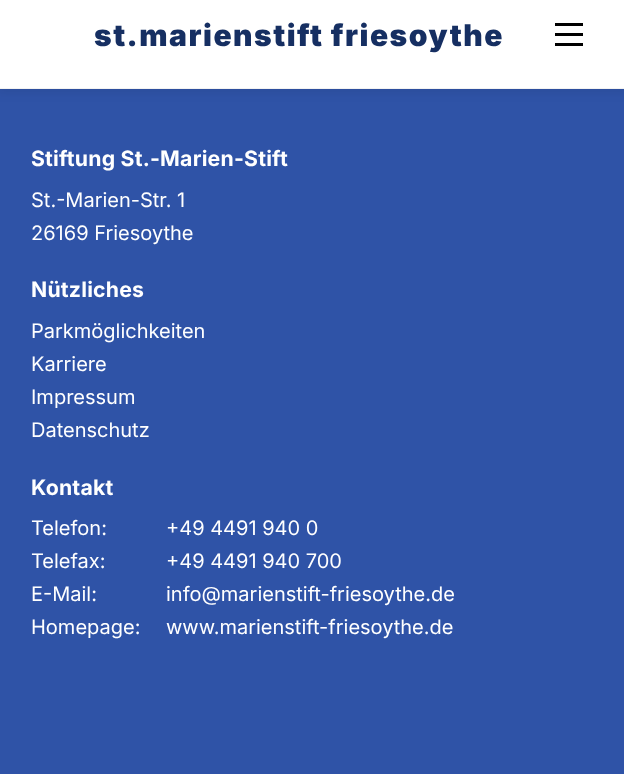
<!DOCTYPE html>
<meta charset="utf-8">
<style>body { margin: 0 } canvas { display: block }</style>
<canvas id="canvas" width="624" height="774"></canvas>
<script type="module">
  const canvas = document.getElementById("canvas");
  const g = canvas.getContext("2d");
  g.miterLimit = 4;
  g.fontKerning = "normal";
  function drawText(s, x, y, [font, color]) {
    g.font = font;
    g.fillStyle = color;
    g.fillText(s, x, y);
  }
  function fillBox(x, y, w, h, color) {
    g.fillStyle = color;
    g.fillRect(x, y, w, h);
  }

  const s1 = ["900 30px Inter", "#162F62"];
  const s2 = ["bold 21.25px Inter", "#FFFFFF"];
  const s3 = ["20px Inter", "#FFFFFF"];

  fillBox(0, 0, 624, 774, "#2F53A7");
  g.fillStyle = "rgba(0, 0, 0, 0.06)";
  g.filter = "blur(5px)";
  g.beginPath();
  g.rect(-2, 0, 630, 94);
  g.fill();
  g.filter = "none";
  fillBox(0, 0, 624, 88, "#FFFFFF");
  fillBox(0, 88, 624, 1, "#F2F2F2");
  g.letterSpacing = "1.5px";
  drawText("st.marienstift friesoythe", 94, 46, s1);
  fillBox(555, 43, 28, 3, "#000000");
  fillBox(555, 23, 28, 3, "#000000");
  fillBox(555, 33, 28, 3, "#000000");
  g.letterSpacing = "0.2px";
  drawText("Stiftung St.-Marien-Stift", 31, 166, s2);
  g.letterSpacing = "0px";
  drawText("St.-Marien-Str. 1", 31, 207, s3);
  drawText("26169 Friesoythe", 31, 240, s3);
  g.letterSpacing = "0.2px";
  drawText("Nützliches", 31, 297, s2);
  g.letterSpacing = "0px";
  drawText("Parkmöglichkeiten", 31, 338, s3);
  drawText("Karriere", 31, 371, s3);
  drawText("Impressum", 31, 404, s3);
  drawText("Datenschutz", 31, 437, s3);
  g.letterSpacing = "0.2px";
  drawText("Kontakt", 31, 495, s2);
  g.letterSpacing = "0px";
  drawText("Telefon:", 31, 535, s3);
  drawText("+49 4491 940 0", 166, 535, s3);
  drawText("Telefax:", 31, 568, s3);
  drawText("+49 4491 940 700", 166, 568, s3);
  drawText("E-Mail:", 31, 601, s3);
  drawText("info@marienstift-friesoythe.de", 166, 601, s3);
  drawText("Homepage:", 31, 634, s3);
  drawText("www.marienstift-friesoythe.de", 166, 634, s3);
</script>
